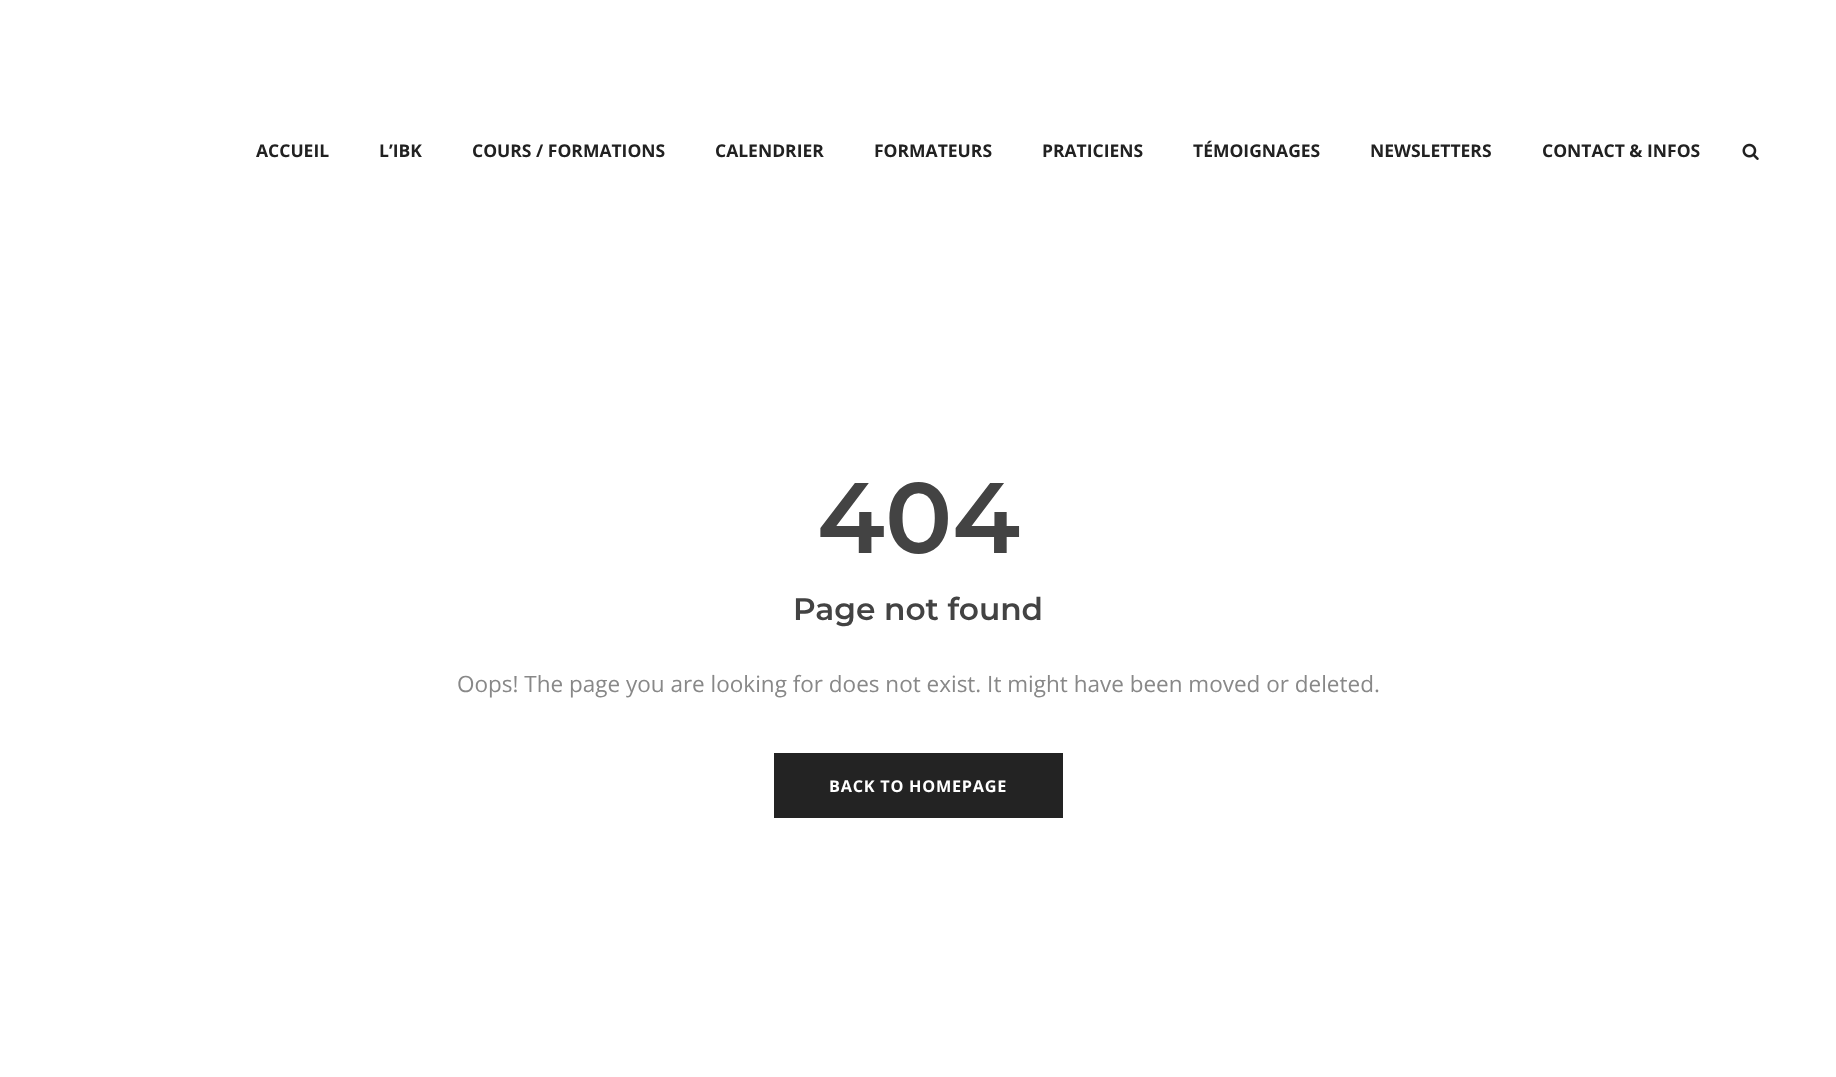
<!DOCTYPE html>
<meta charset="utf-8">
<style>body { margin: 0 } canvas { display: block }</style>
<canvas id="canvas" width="1836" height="1077"></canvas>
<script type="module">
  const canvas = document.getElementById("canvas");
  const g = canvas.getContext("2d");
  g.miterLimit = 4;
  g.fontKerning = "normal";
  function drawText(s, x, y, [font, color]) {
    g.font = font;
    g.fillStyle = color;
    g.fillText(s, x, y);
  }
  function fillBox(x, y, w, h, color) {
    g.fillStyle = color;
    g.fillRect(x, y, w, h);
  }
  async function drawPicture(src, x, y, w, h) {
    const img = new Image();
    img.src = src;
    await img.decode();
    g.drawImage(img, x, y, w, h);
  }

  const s1 = ["bold 17.5px Open Sans", "#212121"];
  const s2 = ["600 100px Montserrat", "#434343"];
  const s3 = ["600 31.25px Montserrat", "#434343"];
  const s4 = ["22.5px Open Sans", "#888888"];
  const s5 = ["bold 16.25px Open Sans", "#FFFFFF"];

  fillBox(0, 0, 1836, 1077, "#FFFFFF");
  drawText("ACCUEIL", 256, 157, s1);
  drawText("L’IBK", 379, 157, s1);
  drawText("COURS / FORMATIONS", 472, 157, s1);
  drawText("CALENDRIER", 715, 157, s1);
  drawText("FORMATEURS", 874, 157, s1);
  drawText("PRATICIENS", 1042, 157, s1);
  drawText("TÉMOIGNAGES", 1193, 157, s1);
  drawText("NEWSLETTERS", 1370, 157, s1);
  drawText("CONTACT & INFOS", 1542, 157, s1);
  await drawPicture("pic1.png", 1742, 143, 17, 17);
  drawText("404", 817, 553, s2);
  drawText("Page not found", 793, 620, s3);
  drawText("Oops! The page you are looking for does not exist. It might have been moved or deleted.", 457, 692, s4);
  fillBox(774, 753, 289, 65, "#232323");
  g.letterSpacing = "0.75px";
  drawText("BACK TO HOMEPAGE", 829, 792, s5);
</script>
